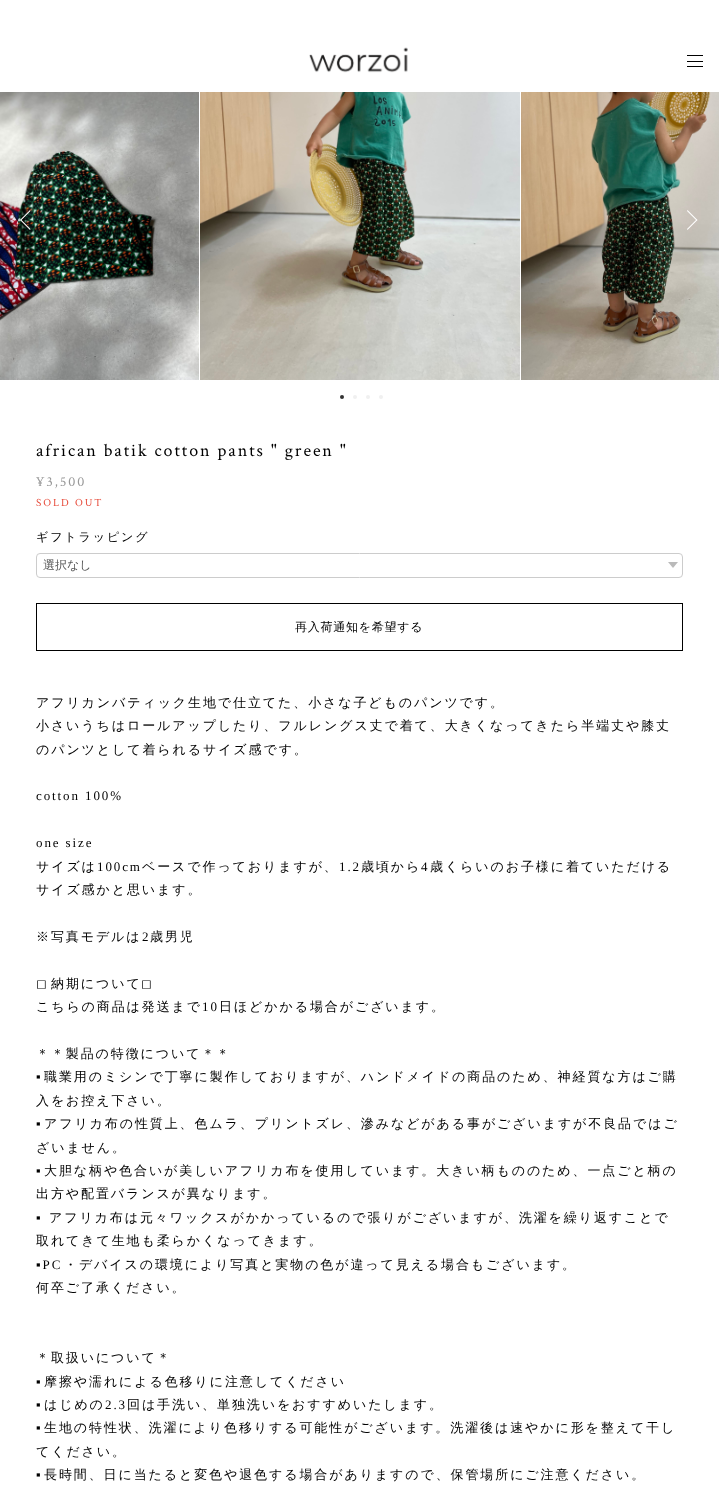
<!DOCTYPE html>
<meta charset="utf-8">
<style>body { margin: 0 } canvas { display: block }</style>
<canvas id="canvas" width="719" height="1489"></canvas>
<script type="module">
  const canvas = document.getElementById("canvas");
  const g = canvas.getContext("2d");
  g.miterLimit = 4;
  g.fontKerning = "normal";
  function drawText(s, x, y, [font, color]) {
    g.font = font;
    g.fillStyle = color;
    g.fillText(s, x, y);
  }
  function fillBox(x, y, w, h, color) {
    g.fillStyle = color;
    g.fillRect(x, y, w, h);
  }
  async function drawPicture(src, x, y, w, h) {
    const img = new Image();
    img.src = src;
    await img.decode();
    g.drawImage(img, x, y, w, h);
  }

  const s1 = ["18px Crimson Text", "#000000"];
  const s2 = ["14px Crimson Text", "#999999"];
  const s3 = ["11px Crimson Text", "#E74C3C"];
  const s4 = ["500 12px WenQuanYi Zen Hei", "#000000"];
  const s5 = ["500 12px WenQuanYi Zen Hei", "#555555"];
  const s6 = ["500 13px WenQuanYi Zen Hei", "#000000"];
  const s7 = ["13px Liberation Serif", "#000000"];
  const s8 = ["13px DejaVu Sans", "#000000"];

  fillBox(0, 0, 719, 1489, "#FFFFFF");
  await drawPicture("pic1.png", 309, 47, 99, 26);
  fillBox(687, 55, 16, 1, "#000000");
  fillBox(687, 61, 16, 1, "#000000");
  fillBox(687, 66, 16, 1, "#000000");
  await drawPicture("pic2.png", 0, 92, 199, 288);
  await drawPicture("pic3.png", 200, 92, 320, 288);
  await drawPicture("pic4.png", 521, 92, 198, 288);
  g.fillStyle = "#FFFFFF";
  g.beginPath();
  g.moveTo(21, 219.5);
  g.lineTo(30.5, 229);
  g.lineTo(30, 230);
  g.lineTo(20, 220);
  g.closePath();
  g.fill();
  g.beginPath();
  g.moveTo(30, 210);
  g.lineTo(30.5, 211);
  g.lineTo(21, 220.5);
  g.lineTo(20, 220);
  g.closePath();
  g.fill();
  g.beginPath();
  g.moveTo(687.5, 210);
  g.lineTo(697.5, 220);
  g.lineTo(696.5, 220.5);
  g.lineTo(687, 211);
  g.closePath();
  g.fill();
  g.beginPath();
  g.moveTo(696.5, 219.5);
  g.lineTo(697.5, 220);
  g.lineTo(687.5, 230);
  g.lineTo(687, 229);
  g.closePath();
  g.fill();
  g.fillStyle = "#333333";
  g.beginPath();
  g.arc(342, 397, 2, 0, Math.PI * 2);
  g.fill();
  g.fillStyle = "#F0F0F0";
  g.beginPath();
  g.arc(355, 397, 2, 0, Math.PI * 2);
  g.fill();
  g.beginPath();
  g.arc(368, 397, 2, 0, Math.PI * 2);
  g.fill();
  g.beginPath();
  g.arc(381, 397, 2, 0, Math.PI * 2);
  g.fill();
  g.letterSpacing = "1.9px";
  drawText("african batik cotton pants \" green \"", 36, 456, s1);
  drawText("¥3,500", 36, 486, s2);
  drawText("SOLD OUT", 36, 506, s3);
  drawText("ギフトラッピング", 36, 541, s4);
  await drawPicture("pic5.png", 668, 562, 10, 6);
  g.beginPath();
  g.roundRect(36.5, 553.5, 646, 24, 3.5);
  g.strokeStyle = "#CCCCCC";
  g.stroke();
  g.letterSpacing = "0px";
  drawText("選択なし", 43, 569, s5);
  g.strokeStyle = "#000000";
  g.strokeRect(36.5, 603.5, 646, 47);
  g.letterSpacing = "0.75px";
  drawText("再入荷通知を希望する", 295, 631, s4);
  g.letterSpacing = "1.9px";
  drawText("アフリカンバティック生地で仕立てた、小さな子どものパンツです。", 36, 707, s6);
  drawText("小さいうちはロールアップしたり、フルレングス丈で着て、大きくなってきたら半端丈や膝丈", 36, 730, s6);
  drawText("のパンツとして着られるサイズ感です。", 36, 754, s6);
  drawText("cotton 100%", 36, 800, s7);
  drawText("one size", 36, 847, s7);
  drawText("サイズは", 36, 871, s6);
  drawText("100cm", 97, 871, s7);
  drawText("ベースで作っておりますが、", 142, 871, s6);
  drawText("1.2", 339, 871, s7);
  drawText("歳頃から", 361, 871, s6);
  drawText("4", 421, 871, s7);
  drawText("歳くらいのお子様に着ていただける", 430, 871, s6);
  drawText("サイズ感かと思います。", 36, 894, s6);
  drawText("※写真モデルは", 36, 941, s6);
  drawText("2", 142, 941, s7);
  drawText("歳男児", 150, 941, s6);
  drawText("◻︎", 36, 988, s8);
  drawText("納期について", 51, 988, s6);
  drawText("◻︎", 141, 988, s8);
  drawText("こちらの商品は発送まで", 36, 1011, s6);
  drawText("10", 202, 1011, s7);
  drawText("日ほどかかる場合がございます。", 219, 1011, s6);
  drawText("＊＊製品の特徴について＊＊", 36, 1058, s6);
  drawText("▪︎", 36, 1081, s7);
  drawText("職業用のミシンで丁寧に製作しておりますが、ハンドメイドの商品のため、神経質な方はご購", 44, 1081, s6);
  drawText("入をお控え下さい。", 36, 1105, s6);
  drawText("▪︎", 36, 1128, s7);
  drawText("アフリカ布の性質上、色ムラ、プリントズレ、滲みなどがある事がございますが不良品ではご", 44, 1128, s6);
  drawText("ざいません。", 36, 1152, s6);
  drawText("▪︎", 36, 1175, s7);
  drawText("大胆な柄や色合いが美しいアフリカ布を使用しています。大きい柄もののため、一点ごと柄の", 44, 1175, s6);
  drawText("出方や配置バランスが異なります。", 36, 1198, s6);
  drawText("▪︎", 36, 1222, s7);
  drawText("アフリカ布は元々ワックスがかかっているので張りがございますが、洗濯を繰り返すことで", 49, 1222, s6);
  drawText("取れてきて生地も柔らかくなってきます。", 36, 1245, s6);
  drawText("▪︎PC", 36, 1269, s7);
  drawText("・デバイスの環境により写真と実物の色が違って見える場合もございます。", 64, 1269, s6);
  drawText("何卒ご了承ください。", 36, 1292, s6);
  drawText("＊取扱いについて＊", 36, 1362, s6);
  drawText("▪︎", 36, 1386, s7);
  drawText("摩擦や濡れによる色移りに注意してください", 44, 1386, s6);
  drawText("▪︎", 36, 1409, s7);
  drawText("はじめの", 44, 1409, s6);
  drawText("2.3", 105, 1409, s7);
  drawText("回は手洗い、単独洗いをおすすめいたします。", 127, 1409, s6);
  drawText("▪︎", 36, 1432, s7);
  drawText("生地の特性状、洗濯により色移りする可能性がございます。洗濯後は速やかに形を整えて干し", 44, 1432, s6);
  drawText("てください。", 36, 1456, s6);
  drawText("▪︎", 36, 1479, s7);
  drawText("長時間、日に当たると変色や退色する場合がありますので、保管場所にご注意ください。", 44, 1479, s6);
</script>
